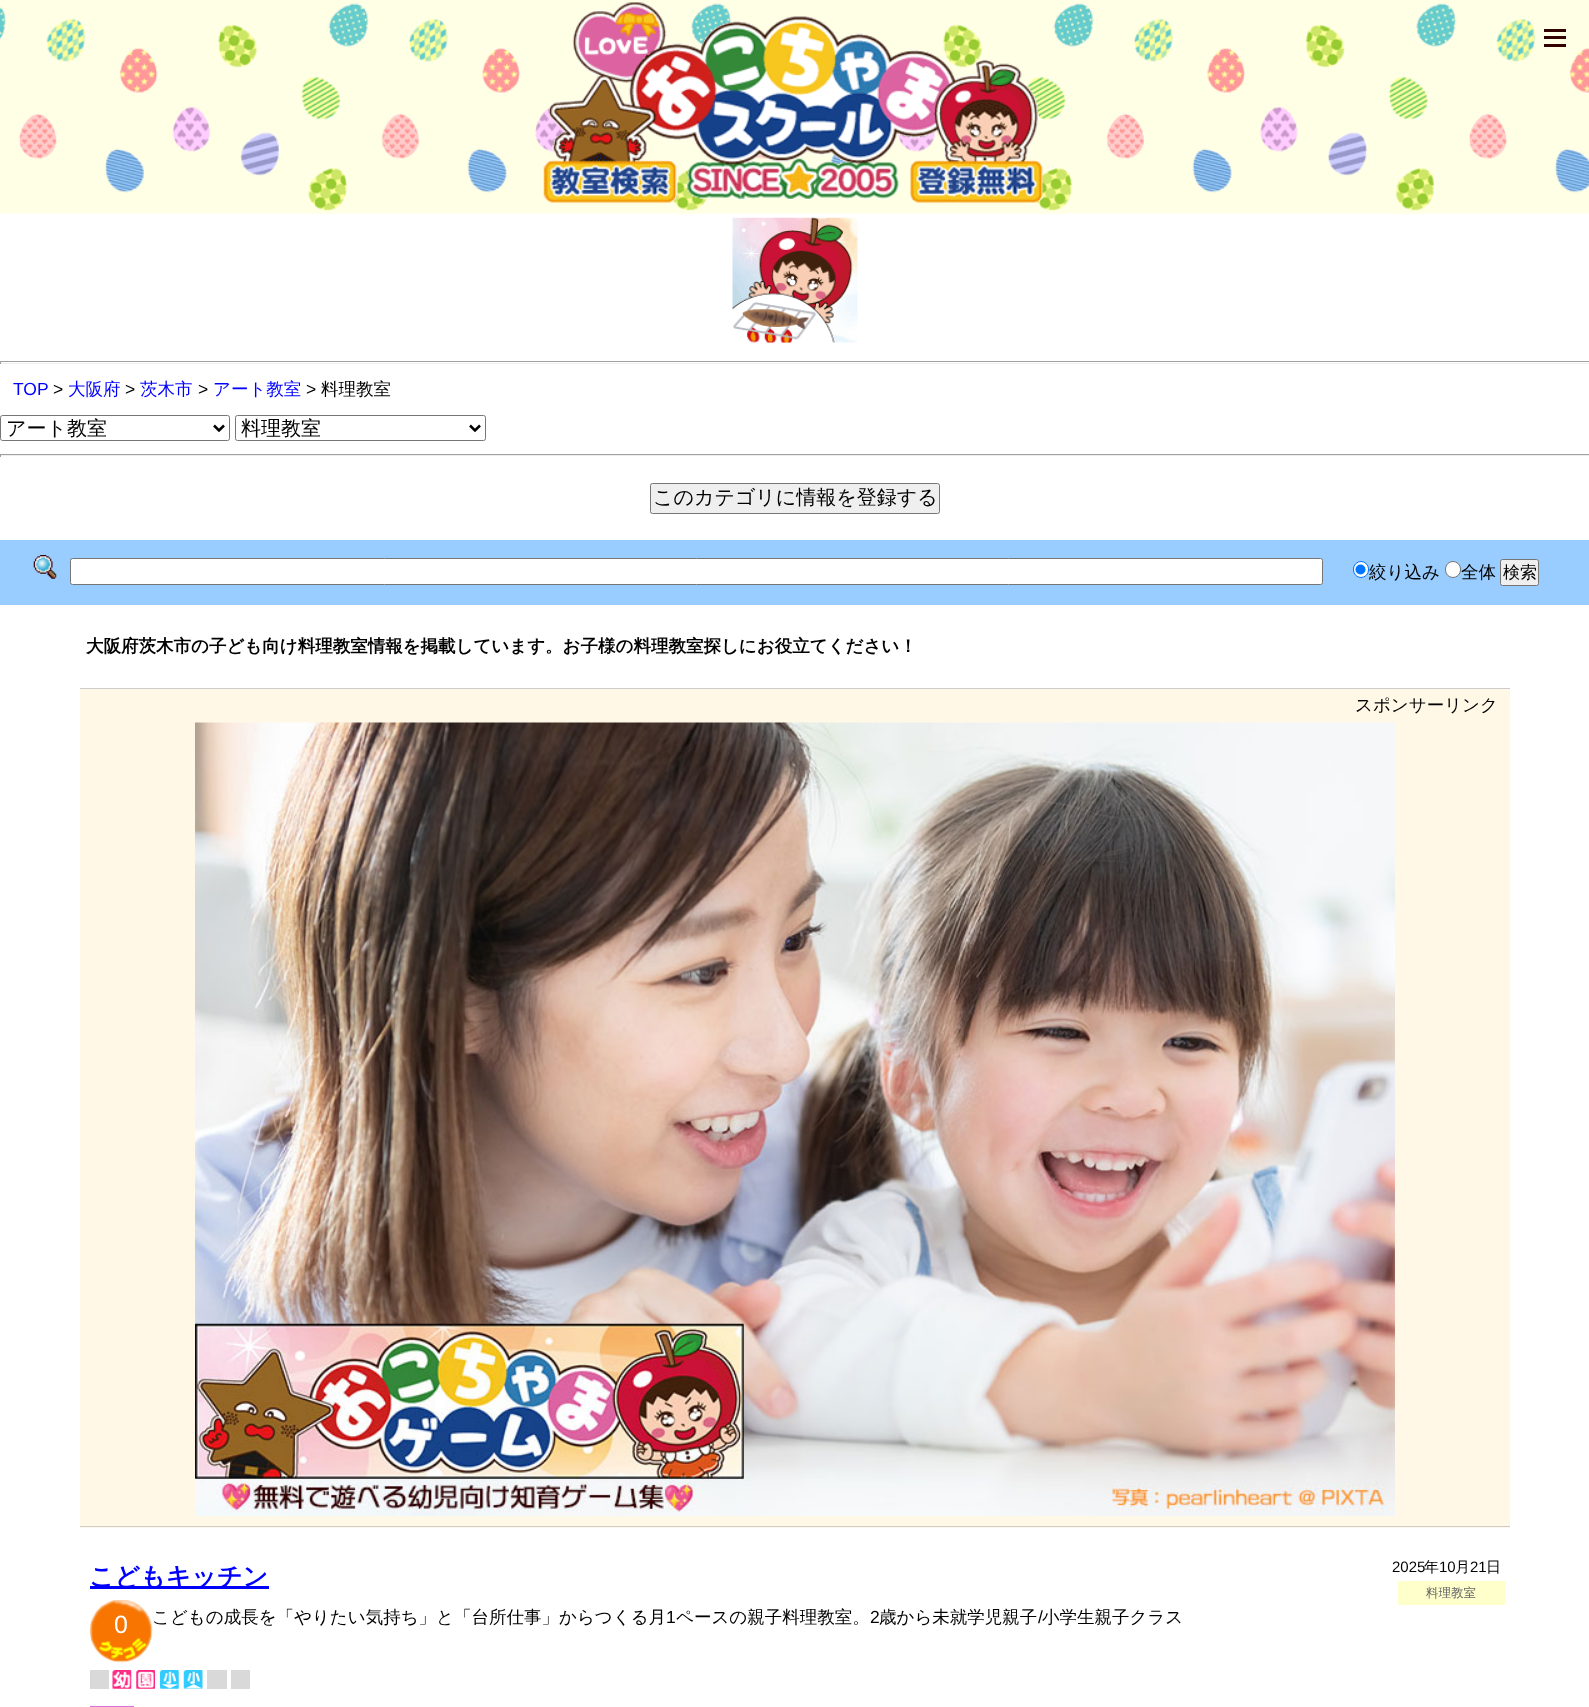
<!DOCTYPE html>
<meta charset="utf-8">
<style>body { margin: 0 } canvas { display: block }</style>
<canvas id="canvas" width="1589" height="1707"></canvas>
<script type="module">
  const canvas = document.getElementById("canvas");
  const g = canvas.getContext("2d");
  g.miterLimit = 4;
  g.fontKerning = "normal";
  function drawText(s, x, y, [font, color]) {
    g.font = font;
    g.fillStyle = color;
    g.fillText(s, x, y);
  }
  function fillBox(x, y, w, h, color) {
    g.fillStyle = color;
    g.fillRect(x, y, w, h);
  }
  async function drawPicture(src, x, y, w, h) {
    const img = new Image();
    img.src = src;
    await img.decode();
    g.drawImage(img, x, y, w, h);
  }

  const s1 = ["17.5px Liberation Sans", "#0000FF"];
  const s2 = ["17.5px Liberation Sans", "#000000"];
  const s3 = ["500 17.5px WenQuanYi Zen Hei", "#0000FF"];
  const s4 = ["500 17.5px WenQuanYi Zen Hei", "#000000"];
  const s5 = ["500 20px WenQuanYi Zen Hei", "#000000"];
  const s6 = ["500 17px WenQuanYi Zen Hei", "#000000"];
  const s7 = ["bold 17.5px WenQuanYi Zen Hei", "#000000"];
  const s8 = ["bold 25px WenQuanYi Zen Hei", "#0000FF"];
  const s9 = ["15px Liberation Sans", "#000000"];
  const s10 = ["500 15px WenQuanYi Zen Hei", "#000000"];
  const s11 = ["500 12.5px WenQuanYi Zen Hei", "#666666"];
  const s12 = ["25px Liberation Sans", "#FFFFFF"];

  fillBox(0, 0, 1589, 1707, "#FFFFFF");
  await drawPicture("pic3.png", 732, 217, 126, 126);
  await drawPicture("pic1.png", 0, 0, 1589, 218);
  await drawPicture("pic2.png", 543, 2, 500, 201);
  fillBox(1544, 36, 22, 3, "#330000");
  fillBox(1544, 29, 22, 3, "#330000");
  fillBox(1544, 44, 22, 3, "#330000");
  fillBox(0, 361, 1589, 1, "#9F9F9F");
  fillBox(0, 363, 1589, 1, "#EEEEEE");
  fillBox(0, 361, 1, 3, "#9F9F9F");
  drawText("TOP", 13, 395, s1);
  drawText(">", 53, 395, s2);
  drawText("大阪府", 68, 395, s3);
  drawText(">", 125, 395, s2);
  drawText("茨木市", 140, 395, s3);
  drawText(">", 198, 395, s2);
  drawText("アート教室", 213, 395, s3);
  drawText(">", 306, 395, s2);
  drawText("料理教室", 321, 395, s4);
  g.beginPath();
  g.roundRect(0.5, 415.5, 229, 25, 2);
  g.strokeStyle = "#767676";
  g.stroke();
  g.beginPath();
  g.moveTo(214, 425.5);
  g.lineTo(219, 430.5);
  g.lineTo(224, 425.5);
  g.strokeStyle = "#000000";
  g.lineWidth = 2.5;
  g.stroke();
  drawText("アート教室", 6, 435, s5);
  g.beginPath();
  g.roundRect(235.5, 415.5, 250, 25, 2);
  g.strokeStyle = "#767676";
  g.lineWidth = 1;
  g.stroke();
  g.beginPath();
  g.moveTo(470, 425.5);
  g.lineTo(475, 430.5);
  g.lineTo(480, 425.5);
  g.strokeStyle = "#000000";
  g.lineWidth = 2.5;
  g.stroke();
  drawText("料理教室", 241, 435, s5);
  fillBox(0, 454, 1589, 1, "#9F9F9F");
  fillBox(0, 455, 1589, 1, "#EEEEEE");
  fillBox(0, 454, 1, 3, "#9F9F9F");
  g.fillStyle = "#EFEFEF";
  g.beginPath();
  g.roundRect(650.5, 483.5, 289, 30, 2);
  g.fill();
  g.strokeStyle = "#767676";
  g.lineWidth = 1;
  g.stroke();
  drawText("このカテゴリに情報を登録する", 653, 504, s5);
  fillBox(0, 540, 1589, 65, "#99CCFF");
  await drawPicture("pic4.png", 33, 555, 24, 24);
  g.fillStyle = "#FFFFFF";
  g.beginPath();
  g.roundRect(70.5, 558.5, 1252, 26, 2);
  g.fill();
  g.stroke();
  g.beginPath();
  g.roundRect(1353.5, 561.5, 15, 16, 7.5);
  g.fill();
  g.strokeStyle = "#0075FF";
  g.stroke();
  g.fillStyle = "#0075FF";
  g.beginPath();
  g.arc(1360.5, 569.5, 5, 0, Math.PI * 2);
  g.fill();
  drawText("絞り込み", 1369, 578, s4);
  g.fillStyle = "#FFFFFF";
  g.beginPath();
  g.roundRect(1445.5, 561.5, 15, 16, 7.5);
  g.fill();
  g.strokeStyle = "#767676";
  g.stroke();
  drawText("全体", 1461, 578, s4);
  g.fillStyle = "#EFEFEF";
  g.beginPath();
  g.roundRect(1500.5, 559.5, 38, 26, 2);
  g.fill();
  g.stroke();
  drawText("検索", 1503, 578, s6);
  drawText("大阪府茨木市の子ども向け料理教室情報を掲載しています。お子様の料理教室探しにお役立てください！", 86, 652, s7);
  fillBox(80, 689, 1430, 839, "#FFF8E7");
  fillBox(80, 688, 1430, 1, "#CCCCCC");
  fillBox(80, 1526, 1430, 1, "#CCCCCC");
  drawText("スポンサーリンク", 1355, 711, s4);
  await drawPicture("pic5.png", 195, 722, 1200, 795);
  fillBox(90, 1586, 179, 3, "#0000FF");
  drawText("こどもキッチン", 89, 1585, s8);
  drawText("2025", 1392, 1572, s9);
  drawText("年", 1424, 1572, s10);
  drawText("10", 1439, 1572, s9);
  drawText("月", 1455, 1572, s10);
  drawText("21", 1470, 1572, s9);
  drawText("日", 1486, 1572, s10);
  fillBox(1398, 1581, 107, 24, "#FFFFCC");
  drawText("料理教室", 1426, 1597, s11);
  await drawPicture("pic6.png", 90, 1600, 63, 63);
  drawText("0", 114, 1633, s12);
  drawText("こどもの成長を「やりたい気持ち」と「台所仕事」からつくる月", 152, 1623, s4);
  drawText("1", 666, 1623, s2);
  drawText("ペースの親子料理教室。", 676, 1623, s4);
  drawText("2", 870, 1623, s2);
  drawText("歳から未就学児親子", 879, 1623, s4);
  drawText("/", 1038, 1623, s2);
  drawText("小学生親子クラス", 1042, 1623, s4);
  fillBox(90, 1670, 19, 19, "#D9D9D9");
  await drawPicture("pic7.png", 112, 1670, 20, 19);
  await drawPicture("pic8.png", 136, 1670, 19, 19);
  await drawPicture("pic9.png", 160, 1670, 19, 19);
  await drawPicture("pic10.png", 183, 1670, 20, 19);
  fillBox(207, 1670, 20, 19, "#D9D9D9");
  fillBox(231, 1670, 19, 19, "#D9D9D9");
  fillBox(90, 1706, 44, 1, "#DA70D6");
</script>
